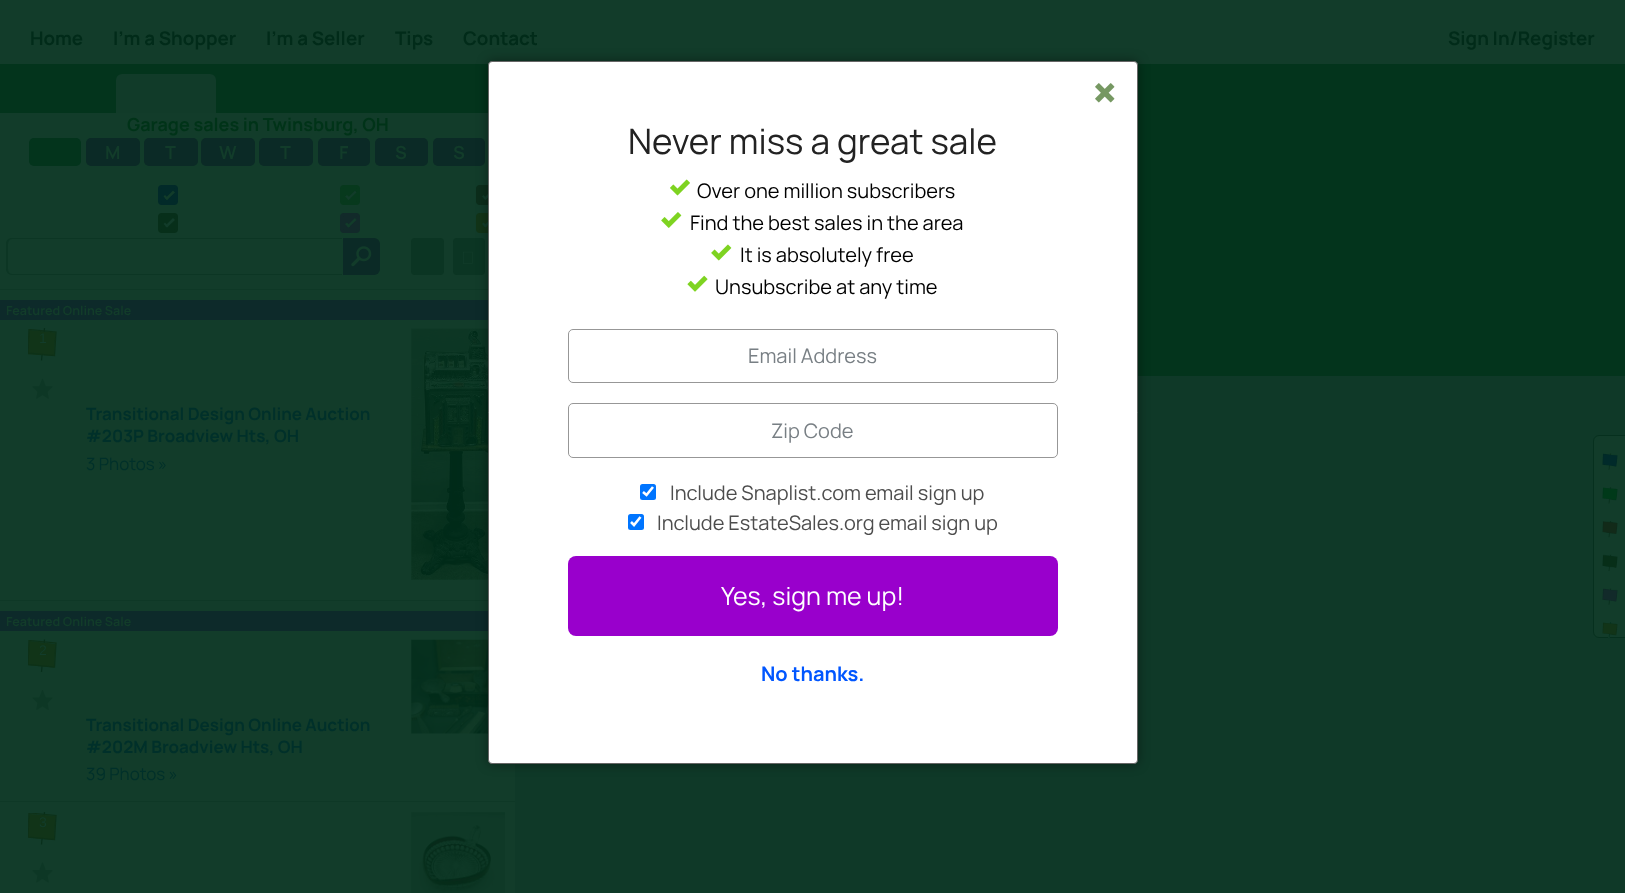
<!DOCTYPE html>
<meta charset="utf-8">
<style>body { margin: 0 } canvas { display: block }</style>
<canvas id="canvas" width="1625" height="893"></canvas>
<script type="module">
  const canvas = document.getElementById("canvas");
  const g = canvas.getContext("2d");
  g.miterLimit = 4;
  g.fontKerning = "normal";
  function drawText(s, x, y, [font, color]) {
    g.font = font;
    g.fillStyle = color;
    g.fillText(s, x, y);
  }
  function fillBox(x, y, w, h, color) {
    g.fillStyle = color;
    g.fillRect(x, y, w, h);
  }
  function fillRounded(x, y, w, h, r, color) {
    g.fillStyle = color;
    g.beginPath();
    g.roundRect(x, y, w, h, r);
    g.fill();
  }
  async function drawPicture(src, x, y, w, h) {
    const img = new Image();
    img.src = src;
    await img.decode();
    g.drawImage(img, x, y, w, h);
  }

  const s1 = ["bold 18.75px Manrope", "#012B19"];
  const s2 = ["bold 18px Manrope", "#003318"];
  const s3 = ["bold 18px Manrope", "#123C2A"];
  const s4 = ["bold 12.5px Manrope", "#123C2A"];
  const s5 = ["14px Liberation Sans", "#123C2A"];
  const s6 = ["bold 17px Manrope", "#00302A"];
  const s7 = ["17px Manrope", "#00302A"];
  const s8 = ["35px Manrope", "#222222"];
  const s9 = ["20px Manrope", "#000000"];
  const s10 = ["20px Manrope", "#787F84"];
  const s11 = ["20px Manrope", "#4D4D4D"];
  const s12 = ["25px Manrope", "#FFFFFF"];
  const s13 = ["bold 20px Manrope", "#0056FF"];

  fillBox(0, 0, 1625, 893, "#123C2A");
  drawText("Home", 30, 45, s1);
  drawText("I'm a Shopper", 113, 45, s1);
  drawText("I'm a Seller", 266, 45, s1);
  drawText("Tips", 395, 45, s1);
  drawText("Contact", 463, 45, s1);
  drawText("Sign In/Register", 1448, 45, s1);
  fillBox(0, 64, 489, 49, "#03341C");
  g.fillStyle = "#113B29";
  g.beginPath();
  g.roundRect(116, 74, 100, 39, [6, 6, 0, 0]);
  g.fill();
  drawText("Garage sales in Twinsburg, OH", 127, 131, s2);
  fillRounded(29, 138, 52, 28, 5, "#03341C");
  fillRounded(86, 138, 54, 28, 5, "#0B2A26");
  drawText("M", 105, 159, s3);
  fillRounded(144, 138, 54, 28, 5, "#0B2A26");
  drawText("T", 165, 159, s3);
  fillRounded(201, 138, 54, 28, 5, "#0B2A26");
  drawText("W", 219, 159, s3);
  fillRounded(259, 138, 54, 28, 5, "#0B2A26");
  drawText("T", 280, 159, s3);
  fillRounded(318, 138, 52, 28, 5, "#0B2A26");
  drawText("F", 339, 159, s3);
  fillRounded(375, 138, 53, 28, 5, "#0B2A26");
  drawText("S", 395, 159, s3);
  fillRounded(433, 138, 52, 28, 5, "#0B2A26");
  drawText("S", 453, 159, s3);
  g.fillStyle = "#022A29";
  g.beginPath();
  g.roundRect(159.5, 186.5, 17, 17, 2.5);
  g.fill();
  g.strokeStyle = "#022A29";
  g.lineWidth = 3;
  g.stroke();
  g.fillStyle = "#123C2A";
  g.beginPath();
  g.moveTo(173, 190.5);
  g.lineTo(175, 192.5);
  g.lineTo(167, 200);
  g.lineTo(165, 198.5);
  g.closePath();
  g.fill();
  g.beginPath();
  g.moveTo(165, 195);
  g.lineTo(168.5, 198.5);
  g.lineTo(167, 200);
  g.lineTo(163.5, 196.5);
  g.closePath();
  g.fill();
  g.fillStyle = "#07391D";
  g.beginPath();
  g.roundRect(341.5, 186.5, 17, 17, 2.5);
  g.fill();
  g.strokeStyle = "#07391D";
  g.stroke();
  g.fillStyle = "#123C2A";
  g.beginPath();
  g.moveTo(355, 190.5);
  g.lineTo(356.5, 192.5);
  g.lineTo(348.5, 200);
  g.lineTo(347, 198.5);
  g.closePath();
  g.fill();
  g.beginPath();
  g.moveTo(347, 195);
  g.lineTo(350.5, 198.5);
  g.lineTo(348.5, 200);
  g.lineTo(345, 196.5);
  g.closePath();
  g.fill();
  g.fillStyle = "#0C2D1B";
  g.beginPath();
  g.roundRect(477.5, 186.5, 17, 17, 2.5);
  g.fill();
  g.strokeStyle = "#0C2D1B";
  g.stroke();
  g.fillStyle = "#123C2A";
  g.beginPath();
  g.moveTo(491.5, 190.5);
  g.lineTo(493, 192.5);
  g.lineTo(485.5, 200);
  g.lineTo(483.5, 198.5);
  g.closePath();
  g.fill();
  g.beginPath();
  g.moveTo(483.5, 195);
  g.lineTo(487, 198.5);
  g.lineTo(485.5, 200);
  g.lineTo(482, 196.5);
  g.closePath();
  g.fill();
  g.fillStyle = "#072F1A";
  g.beginPath();
  g.roundRect(159.5, 214.5, 17, 17, 2.5);
  g.fill();
  g.strokeStyle = "#072F1A";
  g.stroke();
  g.fillStyle = "#123C2A";
  g.beginPath();
  g.moveTo(173, 218);
  g.lineTo(175, 220);
  g.lineTo(167, 227.5);
  g.lineTo(165, 226);
  g.closePath();
  g.fill();
  g.beginPath();
  g.moveTo(165, 222.5);
  g.lineTo(168.5, 226);
  g.lineTo(167, 227.5);
  g.lineTo(163.5, 224);
  g.closePath();
  g.fill();
  g.fillStyle = "#122A2A";
  g.beginPath();
  g.roundRect(341.5, 214.5, 17, 17, 2.5);
  g.fill();
  g.strokeStyle = "#122A2A";
  g.stroke();
  g.fillStyle = "#123C2A";
  g.beginPath();
  g.moveTo(355, 218);
  g.lineTo(356.5, 220);
  g.lineTo(348.5, 227.5);
  g.lineTo(347, 226);
  g.closePath();
  g.fill();
  g.beginPath();
  g.moveTo(347, 222.5);
  g.lineTo(350.5, 226);
  g.lineTo(348.5, 227.5);
  g.lineTo(345, 224);
  g.closePath();
  g.fill();
  g.fillStyle = "#123418";
  g.beginPath();
  g.roundRect(477.5, 214.5, 17, 17, 2.5);
  g.fill();
  g.strokeStyle = "#123418";
  g.stroke();
  g.fillStyle = "#123C2A";
  g.beginPath();
  g.moveTo(491.5, 218);
  g.lineTo(493, 220);
  g.lineTo(485.5, 227.5);
  g.lineTo(483.5, 226);
  g.closePath();
  g.fill();
  g.beginPath();
  g.moveTo(483.5, 222.5);
  g.lineTo(487, 226);
  g.lineTo(485.5, 227.5);
  g.lineTo(482, 224);
  g.closePath();
  g.fill();
  g.fillStyle = "#0C3624";
  g.beginPath();
  g.moveTo(12, 238);
  g.lineTo(342, 238);
  g.lineTo(342, 275);
  g.lineTo(12, 275);
  g.bezierCurveTo(9, 275, 6, 272, 6, 269);
  g.lineTo(6, 244);
  g.bezierCurveTo(6, 240, 9, 238, 12, 238);
  g.closePath();
  g.moveTo(12, 239);
  g.lineTo(342, 239);
  g.lineTo(342, 274);
  g.lineTo(12, 274);
  g.bezierCurveTo(10, 274, 8, 272, 8, 269);
  g.lineTo(8, 244);
  g.bezierCurveTo(8, 241, 10, 239, 12, 239);
  g.closePath();
  g.fill("evenodd");
  g.fillStyle = "#0B2A26";
  g.beginPath();
  g.roundRect(343, 238, 37, 37, [0, 6, 6, 0]);
  g.fill();
  await drawPicture("pic1.png", 351, 246, 21, 21);
  fillRounded(411, 238, 33, 37, 4, "#0B3523");
  fillRounded(453, 238, 32, 37, 4, "#0B3523");
  await drawPicture("pic2.png", 463, 251, 10, 13);
  fillBox(0, 289, 488, 1, "#0E3826");
  fillBox(0, 600, 488, 1, "#0E3826");
  fillBox(0, 300, 488, 20, "#0D2A2A");
  drawText("Featured Online Sale", 6, 315, s4);
  g.beginPath();
  g.moveTo(41.5, 360.5);
  g.lineTo(44.5, 328);
  g.strokeStyle = "#082F1B";
  g.lineWidth = 1.2;
  g.stroke();
  g.save();
  g.beginPath();
  g.rect(28, 329, 30, 32);
  g.clip();
  g.fillStyle = "#113418";
  g.beginPath();
  g.moveTo(29.5, 330);
  g.lineTo(55.5, 332.5);
  g.lineTo(54, 356);
  g.lineTo(26, 354);
  g.closePath();
  g.fill();
  g.beginPath();
  g.moveTo(29, 329.5);
  g.lineTo(56, 332);
  g.lineTo(54.5, 355.5);
  g.lineTo(28, 353);
  g.closePath();
  g.strokeStyle = "#0D3118";
  g.stroke();
  g.restore();
  drawText("1", 39, 343, s5);
  await drawPicture("pic3.png", 32, 378, 21, 21);
  drawText("Transitional Design Online Auction", 86, 420, s6);
  drawText("#203P Broadview Hts, OH", 86, 442, s6);
  await drawPicture("pic4.png", 411, 328, 77, 252);
  drawText("3 Photos »", 86, 470, s7);
  fillBox(0, 801, 515, 1, "#0E3826");
  fillBox(0, 611, 488, 20, "#0D2A2A");
  drawText("Featured Online Sale", 6, 626, s4);
  g.beginPath();
  g.moveTo(41.5, 672);
  g.lineTo(44.5, 639.5);
  g.stroke();
  g.save();
  g.beginPath();
  g.rect(28, 640, 30, 33);
  g.clip();
  g.fillStyle = "#113418";
  g.beginPath();
  g.moveTo(29.5, 641);
  g.lineTo(55.5, 644);
  g.lineTo(54, 667.5);
  g.lineTo(26, 665);
  g.closePath();
  g.fill();
  g.beginPath();
  g.moveTo(29, 640.5);
  g.lineTo(56, 643);
  g.lineTo(54.5, 667);
  g.lineTo(28, 664.5);
  g.closePath();
  g.strokeStyle = "#0D3118";
  g.stroke();
  g.restore();
  drawText("2", 39, 655, s5);
  await drawPicture("pic5.png", 32, 690, 21, 20);
  drawText("Transitional Design Online Auction", 86, 731, s6);
  drawText("#202M Broadview Hts, OH", 86, 753, s6);
  await drawPicture("pic6.png", 411, 639, 77, 95);
  drawText("39 Photos »", 86, 780, s7);
  g.beginPath();
  g.moveTo(41.5, 844.5);
  g.lineTo(44.5, 812);
  g.stroke();
  g.save();
  g.beginPath();
  g.rect(28, 813, 30, 32);
  g.clip();
  g.fillStyle = "#113418";
  g.beginPath();
  g.moveTo(29.5, 814);
  g.lineTo(55.5, 816);
  g.lineTo(54, 840);
  g.lineTo(26, 837.5);
  g.closePath();
  g.fill();
  g.beginPath();
  g.moveTo(29, 813);
  g.lineTo(56, 815.5);
  g.lineTo(54.5, 839.5);
  g.lineTo(28, 837);
  g.closePath();
  g.strokeStyle = "#0D3118";
  g.stroke();
  g.restore();
  drawText("3", 39, 827, s5);
  await drawPicture("pic7.png", 32, 862, 21, 21);
  await drawPicture("pic8.png", 411, 812, 94, 81);
  fillBox(1137, 64, 488, 312, "#03341C");
  fillBox(515, 376, 1110, 517, "#0F3928");
  g.fillStyle = "#123C2A";
  g.beginPath();
  g.roundRect(1593, 435, 32, 203, [6, 0, 0, 6]);
  g.fill();
  g.beginPath();
  g.moveTo(1599, 435.5);
  g.lineTo(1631.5, 435.5);
  g.lineTo(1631.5, 637.5);
  g.lineTo(1599, 637.5);
  g.bezierCurveTo(1596, 637.5, 1593.5, 635, 1593.5, 632);
  g.lineTo(1593.5, 441);
  g.bezierCurveTo(1593.5, 438, 1596, 435.5, 1599, 435.5);
  g.closePath();
  g.strokeStyle = "#06301E";
  g.lineWidth = 1;
  g.stroke();
  await drawPicture("pic9.png", 1602, 453, 16, 17);
  await drawPicture("pic10.png", 1602, 487, 16, 17);
  await drawPicture("pic11.png", 1602, 521, 16, 17);
  await drawPicture("pic12.png", 1602, 554, 16, 17);
  await drawPicture("pic13.png", 1602, 588, 16, 17);
  await drawPicture("pic14.png", 1602, 622, 16, 17);
  g.fillStyle = "rgba(0, 0, 0, 0.4)";
  g.filter = "blur(6px)";
  g.beginPath();
  g.roundRect(488, 61, 650, 703, 4);
  g.fill();
  g.filter = "none";
  g.fillStyle = "#FFFFFF";
  g.beginPath();
  g.roundRect(488.5, 61.5, 649, 702, 3.5);
  g.fill();
  g.strokeStyle = "#666666";
  g.stroke();
  await drawPicture("pic15.png", 1095, 83, 20, 20);
  drawText("Never miss a great sale", 628, 154, s8);
  await drawPicture("pic16.png", 670, 179, 20, 17);
  drawText("Over one million subscribers", 697, 198, s9);
  await drawPicture("pic17.png", 661, 212, 21, 16);
  drawText("Find the best sales in the area", 690, 230, s9);
  await drawPicture("pic18.png", 711, 244, 21, 17);
  drawText("It is absolutely free", 740, 262, s9);
  await drawPicture("pic19.png", 687, 275, 21, 17);
  drawText("Unsubscribe at any time", 715, 294, s9);
  g.beginPath();
  g.roundRect(568.5, 329.5, 489, 53, 4.5);
  g.strokeStyle = "#979797";
  g.stroke();
  drawText("Email Address", 748, 363, s10);
  g.beginPath();
  g.roundRect(568.5, 403.5, 489, 54, 4.5);
  g.stroke();
  drawText("Zip Code", 771, 438, s10);
  fillRounded(640, 484, 16, 16, 2.5, "#0075FF");
  g.beginPath();
  g.moveTo(643, 492);
  g.lineTo(646.5, 495);
  g.lineTo(653, 487);
  g.strokeStyle = "#FFFFFF";
  g.lineWidth = 2.6;
  g.stroke();
  drawText("Include Snaplist.com email sign up", 670, 500, s11);
  fillRounded(628, 514, 16, 16, 2.5, "#0075FF");
  g.beginPath();
  g.moveTo(631, 522);
  g.lineTo(634, 525);
  g.lineTo(640.5, 517);
  g.stroke();
  drawText("Include EstateSales.org email sign up", 657, 530, s11);
  fillRounded(568, 556, 490, 80, 8, "#9900CC");
  drawText("Yes, sign me up!", 721, 605, s12);
  drawText("No thanks.", 761, 681, s13);
</script>
